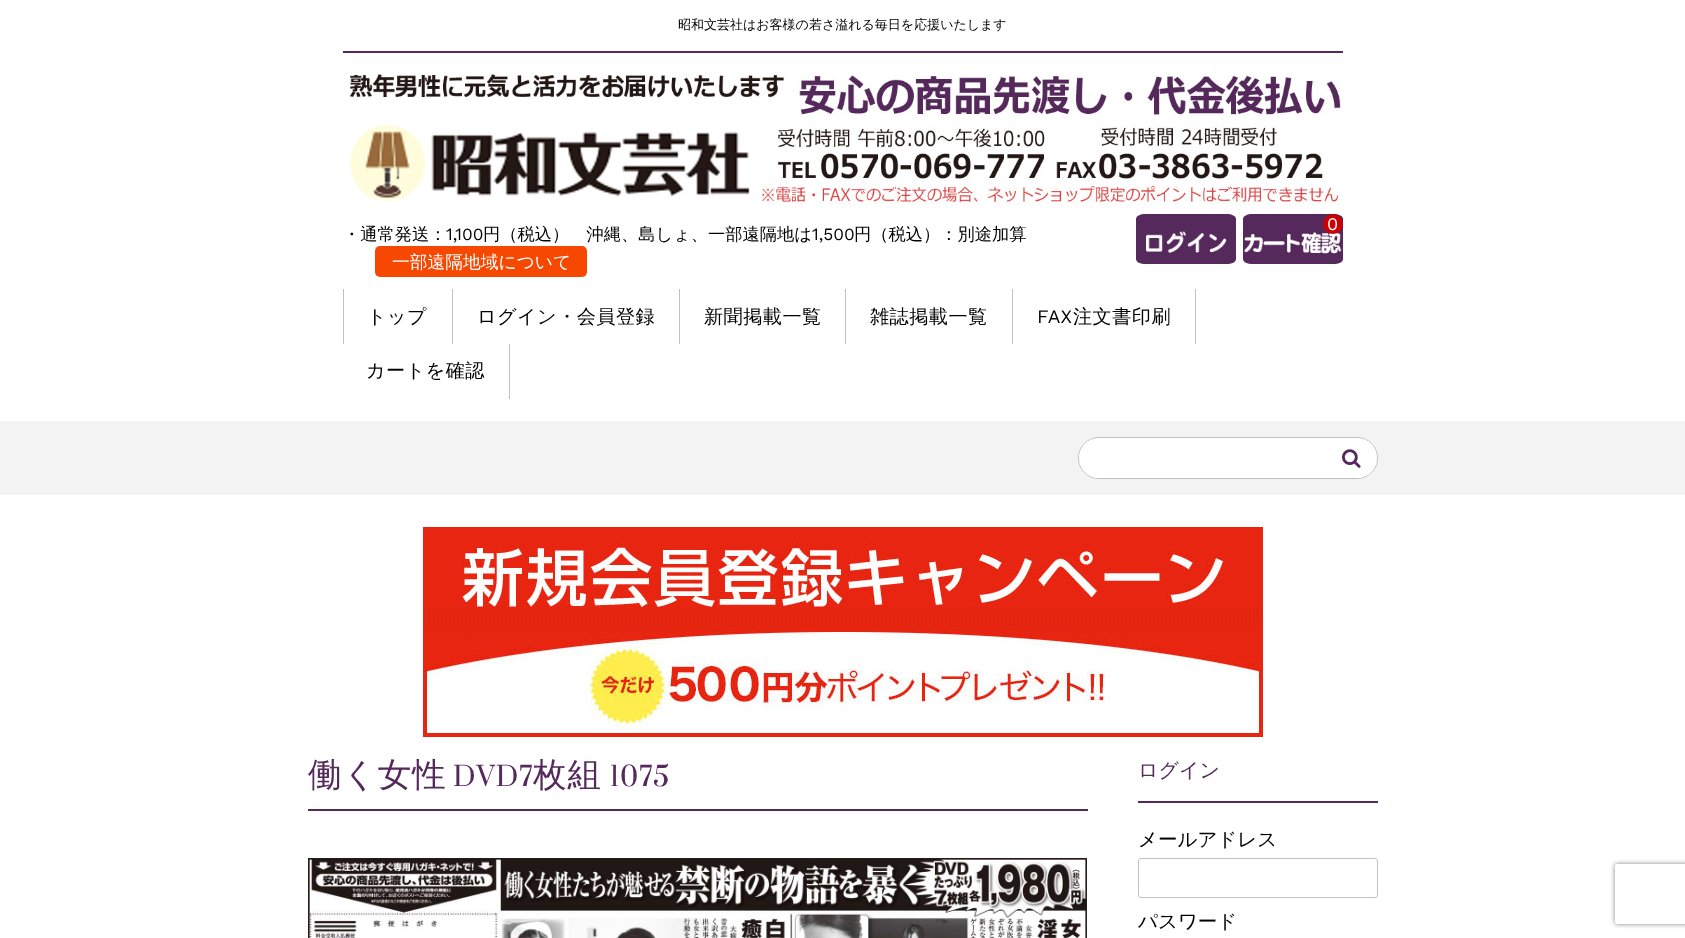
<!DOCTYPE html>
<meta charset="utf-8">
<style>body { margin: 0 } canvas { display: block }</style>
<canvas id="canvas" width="1685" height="938"></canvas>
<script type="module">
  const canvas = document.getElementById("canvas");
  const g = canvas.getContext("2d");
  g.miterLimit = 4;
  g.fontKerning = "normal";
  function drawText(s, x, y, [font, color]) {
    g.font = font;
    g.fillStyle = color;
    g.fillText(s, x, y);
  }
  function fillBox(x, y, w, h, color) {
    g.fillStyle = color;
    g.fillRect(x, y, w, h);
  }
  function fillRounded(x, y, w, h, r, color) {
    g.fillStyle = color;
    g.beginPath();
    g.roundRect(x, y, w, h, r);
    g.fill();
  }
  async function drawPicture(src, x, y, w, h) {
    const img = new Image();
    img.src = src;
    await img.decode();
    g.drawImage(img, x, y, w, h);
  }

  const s1 = ["500 13px WenQuanYi Zen Hei", "#000000"];
  const s2 = ["500 17.25px WenQuanYi Zen Hei", "#000000"];
  const s3 = ["17.25px Work Sans", "#000000"];
  const s4 = ["500 17.75px WenQuanYi Zen Hei", "#FFFFFF"];
  const s5 = ["18px Work Sans", "#FFFFFF"];
  const s6 = ["500 19.1px WenQuanYi Zen Hei", "#000000"];
  const s7 = ["19.1px Work Sans", "#000000"];
  const s8 = ["500 33.5px WenQuanYi Zen Hei", "#55295B"];
  const s9 = ["33.5px Suranna", "#55295B"];
  const s10 = ["500 20px WenQuanYi Zen Hei", "#55295B"];
  const s11 = ["500 19.5px WenQuanYi Zen Hei", "#000000"];

  fillBox(0, 0, 1685, 938, "#FFFFFF");
  drawText("昭和文芸社はお客様の若さ溢れる毎日を応援いたします", 678, 29, s1);
  fillBox(343, 51, 1000, 2, "#55295B");
  await drawPicture("pic1.png", 349, 70, 992, 134);
  drawText("・通常発送：", 343, 240, s2);
  drawText("1,100", 446, 240, s3);
  drawText("円（税込）　沖縄、島しょ、一部遠隔地は", 483, 240, s2);
  drawText("1,500", 812, 240, s3);
  drawText("円（税込）：別途加算", 854, 240, s2);
  fillRounded(375, 246, 212, 31, 5, "#F64800");
  drawText("一部遠隔地域について", 392, 268, s4);
  g.fillStyle = "#55295B";
  g.beginPath();
  g.moveTo(1146, 214);
  g.lineTo(1226, 214);
  g.bezierCurveTo(1232, 214, 1236, 216, 1236, 219);
  g.lineTo(1236, 259);
  g.bezierCurveTo(1236, 262, 1232, 264, 1226, 264);
  g.lineTo(1146, 264);
  g.bezierCurveTo(1140, 264, 1136, 262, 1136, 259);
  g.lineTo(1136, 219);
  g.bezierCurveTo(1136, 216, 1140, 214, 1146, 214);
  g.closePath();
  g.fill();
  await drawPicture("pic2.png", 1146, 231, 81, 22);
  g.beginPath();
  g.moveTo(1253, 214);
  g.lineTo(1333, 214);
  g.bezierCurveTo(1339, 214, 1343, 216, 1343, 219);
  g.lineTo(1343, 259);
  g.bezierCurveTo(1343, 262, 1339, 264, 1333, 264);
  g.lineTo(1253, 264);
  g.bezierCurveTo(1247, 264, 1243, 262, 1243, 259);
  g.lineTo(1243, 219);
  g.bezierCurveTo(1243, 216, 1247, 214, 1253, 214);
  g.closePath();
  g.fill();
  await drawPicture("pic3.png", 1244, 232, 98, 22);
  g.fillStyle = "#CC0000";
  g.beginPath();
  g.arc(1333, 224, 10, 0, Math.PI * 2);
  g.fill();
  drawText("0", 1327, 230, s5);
  fillBox(452, 289, 1, 55, "#C1C1C4");
  fillBox(343, 289, 1, 55, "#C1C1C4");
  g.letterSpacing = "0.5px";
  drawText("トップ", 367, 323, s6);
  fillBox(679, 289, 1, 55, "#C1C1C4");
  drawText("ログイン・会員登録", 477, 323, s6);
  fillBox(845, 289, 1, 55, "#C1C1C4");
  drawText("新聞掲載一覧", 704, 323, s6);
  fillBox(1012, 289, 1, 55, "#C1C1C4");
  drawText("雑誌掲載一覧", 870, 323, s6);
  fillBox(1195, 289, 1, 55, "#C1C1C4");
  drawText("FAX", 1037, 323, s7);
  drawText("注文書印刷", 1073, 323, s6);
  fillBox(509, 344, 1, 55, "#C1C1C4");
  drawText("カートを確認", 366, 377, s6);
  fillBox(0, 421, 1685, 74, "#F3F3F4");
  g.beginPath();
  g.roundRect(1078.5, 437.5, 299, 41, 20.5);
  g.strokeStyle = "#C1C1C4";
  g.stroke();
  fillRounded(1079, 438, 298, 40, 20, "#FFFFFF");
  await drawPicture("pic4.png", 1342, 449, 19, 19);
  await drawPicture("pic5.png", 423, 527, 840, 210);
  fillBox(308, 809, 780, 2, "#55295B");
  g.letterSpacing = "1px";
  drawText("働く女性", 308, 786, s8);
  drawText("DVD7", 453, 786, s9);
  drawText("枚組", 533, 786, s8);
  drawText("1075", 610, 786, s9);
  await drawPicture("pic6.png", 308, 858, 779, 80);
  fillBox(1138, 801, 240, 2, "#55295B");
  g.letterSpacing = "0px";
  drawText("ログイン", 1138, 777, s10);
  drawText("メールアドレス", 1138, 846, s11);
  g.beginPath();
  g.roundRect(1138.5, 858.5, 239, 39, 2.5);
  g.stroke();
  drawText("パスワード", 1138, 928, s11);
  g.save();
  g.beginPath();
  g.moveTo(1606, 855);
  g.lineTo(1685, 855);
  g.lineTo(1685, 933);
  g.lineTo(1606, 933);
  g.closePath();
  g.moveTo(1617, 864);
  g.lineTo(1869, 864);
  g.bezierCurveTo(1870, 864, 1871, 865, 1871, 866);
  g.lineTo(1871, 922);
  g.bezierCurveTo(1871, 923, 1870, 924, 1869, 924);
  g.lineTo(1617, 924);
  g.bezierCurveTo(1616, 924, 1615, 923, 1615, 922);
  g.lineTo(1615, 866);
  g.bezierCurveTo(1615, 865, 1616, 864, 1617, 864);
  g.closePath();
  g.clip("evenodd");
  g.fillStyle = "#808080";
  g.filter = "blur(2.5px)";
  g.beginPath();
  g.roundRect(1615, 864, 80, 60, 2);
  g.fill();
  g.filter = "none";
  g.restore();
</script>
